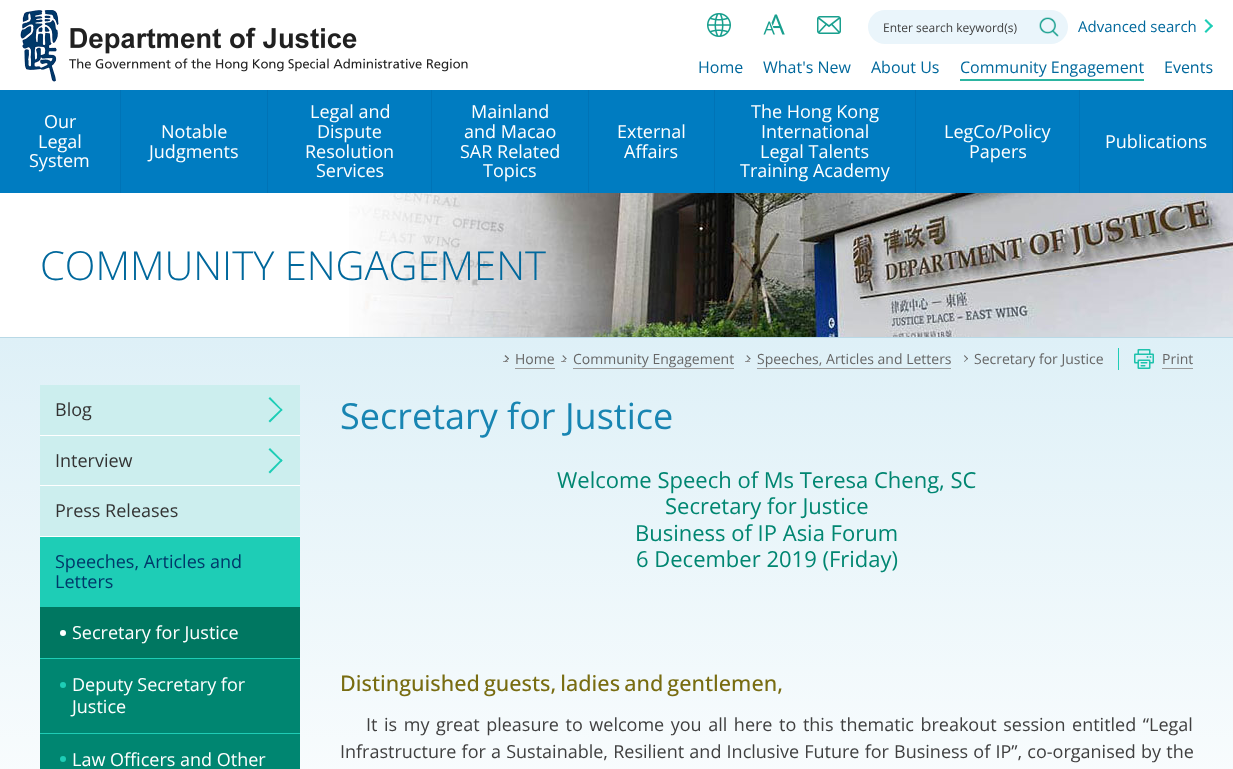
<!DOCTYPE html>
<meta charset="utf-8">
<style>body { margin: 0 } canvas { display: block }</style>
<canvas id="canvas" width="1233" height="769"></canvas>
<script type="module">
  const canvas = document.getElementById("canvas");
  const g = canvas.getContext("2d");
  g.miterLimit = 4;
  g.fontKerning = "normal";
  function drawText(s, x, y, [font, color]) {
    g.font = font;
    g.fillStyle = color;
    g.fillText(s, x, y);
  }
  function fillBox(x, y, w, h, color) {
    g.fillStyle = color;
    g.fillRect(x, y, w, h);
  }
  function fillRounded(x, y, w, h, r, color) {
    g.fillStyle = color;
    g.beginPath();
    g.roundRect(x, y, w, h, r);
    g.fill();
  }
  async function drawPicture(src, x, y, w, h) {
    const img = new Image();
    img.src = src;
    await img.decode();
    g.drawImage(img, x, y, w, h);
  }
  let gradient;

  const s1 = ["12px Open Sans", "#404040"];
  const s2 = ["15px Open Sans", "#00689C"];
  const s3 = ["16px Open Sans", "#00689C"];
  const s4 = ["18px Open Sans", "#FFFFFF"];
  const s5 = ["300 40px Open Sans", "#00689C"];
  const s6 = ["14px Open Sans", "#666666"];
  const s7 = ["18px Open Sans", "#333333"];
  const s8 = ["18px Open Sans", "#003869"];
  const s9 = ["36px Open Sans", "#1885B2"];
  const s10 = ["22px Open Sans", "#008671"];
  const s11 = ["500 21.6px Open Sans", "#786C11"];
  const s12 = ["18px Open Sans", "#404040"];

  fillBox(0, 0, 1233, 769, "#FFFFFF");
  await drawPicture("pic1.png", 20, 10, 448, 72);
  await drawPicture("pic2.png", 707, 13, 24, 24);
  await drawPicture("pic3.png", 763, 14, 22, 21);
  await drawPicture("pic4.png", 817, 16, 24, 18);
  fillRounded(868, 10, 200, 34, 17, "#EAF5FB");
  drawText("Enter search keyword(s)", 883, 32, s1);
  await drawPicture("pic5.png", 1039, 17, 20, 20);
  drawText("Advanced search", 1078, 32, s2);
  g.fillStyle = "#1ECDB6";
  g.beginPath();
  g.moveTo(1204.5, 20.5);
  g.lineTo(1206, 19);
  g.lineTo(1213, 26);
  g.lineTo(1211.5, 27.5);
  g.closePath();
  g.fill();
  g.beginPath();
  g.moveTo(1204.5, 31.5);
  g.lineTo(1211.5, 24.5);
  g.lineTo(1213, 26);
  g.lineTo(1206, 33);
  g.closePath();
  g.fill();
  drawText("Home", 698, 73, s3);
  drawText("What's New", 763, 73, s3);
  drawText("About Us", 871, 73, s3);
  drawText("Community Engagement", 960, 73, s3);
  fillBox(960, 79, 184, 2, "#2CB5A1");
  drawText("Events", 1164, 73, s3);
  fillBox(0, 90, 1232, 103, "#007CC1");
  fillBox(120, 90, 1, 103, "#0073B6");
  drawText("Our", 44, 128, s4);
  drawText("Legal", 38, 148, s4);
  drawText("System", 29, 167, s4);
  fillBox(267, 90, 1, 103, "#0073B6");
  drawText("Notable", 161, 138, s4);
  drawText("Judgments", 149, 158, s4);
  fillBox(431, 90, 1, 103, "#0073B6");
  drawText("Legal and", 310, 118, s4);
  drawText("Dispute", 317, 138, s4);
  drawText("Resolution", 305, 158, s4);
  drawText("Services", 316, 177, s4);
  fillBox(588, 90, 1, 103, "#0073B6");
  drawText("Mainland", 471, 118, s4);
  drawText("and Macao", 464, 138, s4);
  drawText("SAR Related", 460, 158, s4);
  drawText("Topics", 483, 177, s4);
  fillBox(714, 90, 1, 103, "#0073B6");
  drawText("External", 617, 138, s4);
  drawText("Affairs", 624, 158, s4);
  fillBox(915, 90, 1, 103, "#0073B6");
  drawText("The Hong Kong", 751, 118, s4);
  drawText("International", 761, 138, s4);
  drawText("Legal Talents", 760, 158, s4);
  drawText("Training Academy", 740, 177, s4);
  fillBox(1079, 90, 1, 103, "#0073B6");
  drawText("LegCo/Policy", 944, 138, s4);
  drawText("Papers", 969, 158, s4);
  fillBox(1232, 90, 1, 103, "#0073B6");
  drawText("Publications", 1105, 148, s4);
  fillBox(0, 337, 1233, 1, "#B9D9E6");
  await drawPicture("pic6.png", 349, 193, 884, 144);
  drawText("COMMUNITY ENGAGEMENT", 40, 280, s5);
  gradient = g.createLinearGradient(617, 338, 617, 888);
  gradient.addColorStop(0, "#DEF0F7");
  gradient.addColorStop(1, "#FFFFFF");
  g.fillStyle = gradient;
  g.fillRect(0, 338, 1233, 431);
  fillBox(503, 361, 5, 1, "#999999");
  fillBox(515, 368, 40, 1, "#999999");
  g.fillStyle = "#666666";
  g.beginPath();
  g.moveTo(505.5, 355);
  g.lineTo(509, 358.5);
  g.lineTo(508.5, 359.5);
  g.lineTo(504.5, 356);
  g.closePath();
  g.fill();
  g.beginPath();
  g.moveTo(508.5, 358);
  g.lineTo(509, 358.5);
  g.lineTo(505.5, 362);
  g.lineTo(504.5, 361.5);
  g.closePath();
  g.fill();
  drawText("Home", 515, 364, s6);
  fillBox(561, 361, 5, 1, "#999999");
  fillBox(573, 368, 161, 1, "#999999");
  g.fillStyle = "#666666";
  g.beginPath();
  g.moveTo(563, 355);
  g.lineTo(566.5, 358.5);
  g.lineTo(566, 359.5);
  g.lineTo(562.5, 356);
  g.closePath();
  g.fill();
  g.beginPath();
  g.moveTo(566, 358);
  g.lineTo(566.5, 358.5);
  g.lineTo(563, 362);
  g.lineTo(562.5, 361.5);
  g.closePath();
  g.fill();
  drawText("Community Engagement", 573, 364, s6);
  fillBox(745, 361, 5, 1, "#999999");
  fillBox(757, 368, 194, 1, "#999999");
  g.fillStyle = "#666666";
  g.beginPath();
  g.moveTo(747, 355);
  g.lineTo(750.5, 358.5);
  g.lineTo(750, 359.5);
  g.lineTo(746.5, 356);
  g.closePath();
  g.fill();
  g.beginPath();
  g.moveTo(750, 358);
  g.lineTo(750.5, 358.5);
  g.lineTo(747, 362);
  g.lineTo(746.5, 361.5);
  g.closePath();
  g.fill();
  drawText("Speeches, Articles and Letters", 757, 364, s6);
  g.beginPath();
  g.moveTo(964.5, 355);
  g.lineTo(968, 358.5);
  g.lineTo(967.5, 359.5);
  g.lineTo(964, 356);
  g.closePath();
  g.fill();
  g.beginPath();
  g.moveTo(967.5, 358);
  g.lineTo(968, 358.5);
  g.lineTo(964.5, 362);
  g.lineTo(964, 361.5);
  g.closePath();
  g.fill();
  drawText("Secretary for Justice", 974, 364, s6);
  fillBox(1118, 348, 1, 22, "#1ECDB6");
  await drawPicture("pic7.png", 1134, 349, 20, 20);
  drawText("Print", 1162, 364, s6);
  fillBox(1162, 368, 31, 1, "#999999");
  fillBox(40, 385, 260, 50, "#CCEEEE");
  drawText("Blog", 55, 416, s7);
  g.fillStyle = "#1ECDB6";
  g.beginPath();
  g.moveTo(268.5, 398.5);
  g.lineTo(270, 397);
  g.lineTo(282.5, 410);
  g.lineTo(281.5, 411);
  g.closePath();
  g.fill();
  fillBox(40, 436, 260, 49, "#CCEEEE");
  fillBox(40, 435, 260, 1, "#FFFFFF");
  g.fillStyle = "#1ECDB6";
  g.beginPath();
  g.moveTo(268.5, 421);
  g.lineTo(281.5, 408.5);
  g.lineTo(282.5, 410);
  g.lineTo(270, 422.5);
  g.closePath();
  g.moveTo(268.5, 449.5);
  g.lineTo(270, 448);
  g.lineTo(282.5, 460.5);
  g.lineTo(281.5, 462);
  g.closePath();
  g.fill();
  drawText("Interview", 55, 467, s7);
  g.fillStyle = "#1ECDB6";
  g.beginPath();
  g.moveTo(268.5, 472);
  g.lineTo(281.5, 459);
  g.lineTo(282.5, 460.5);
  g.lineTo(270, 473.5);
  g.closePath();
  g.fill();
  fillBox(40, 486, 260, 50, "#CCEEEE");
  fillBox(40, 485, 260, 1, "#FFFFFF");
  drawText("Press Releases", 55, 517, s7);
  fillBox(40, 536, 260, 1, "#FFFFFF");
  fillBox(40, 537, 260, 70, "#1ECDB6");
  drawText("Speeches, Articles and", 55, 568, s8);
  drawText("Letters", 55, 588, s8);
  fillBox(40, 607, 260, 51, "#007761");
  fillBox(40, 658, 260, 1, "#1ECDB6");
  g.fillStyle = "#FFFFFF";
  g.beginPath();
  g.arc(63, 633, 3, 0, Math.PI * 2);
  g.fill();
  drawText("Secretary for Justice", 72, 639, s4);
  fillBox(40, 659, 260, 74, "#008671");
  fillBox(40, 733, 260, 1, "#1ECDB6");
  g.beginPath();
  g.arc(63, 685, 3, 0, Math.PI * 2);
  g.fill();
  drawText("Deputy Secretary for", 72, 691, s4);
  drawText("Justice", 72, 713, s4);
  fillBox(40, 734, 260, 35, "#008671");
  g.fillStyle = "#1ECDB6";
  g.beginPath();
  g.arc(63, 759, 3, 0, Math.PI * 2);
  g.fill();
  drawText("Law Officers and Other", 72, 766, s4);
  drawText("Secretary for Justice", 340, 429, s9);
  drawText("Welcome Speech of Ms Teresa Cheng, SC", 557, 488, s10);
  drawText("Secretary for Justice", 665, 514, s10);
  drawText("Business of IP Asia Forum", 635, 541, s10);
  drawText("6 December 2019 (Friday)", 636, 567, s10);
  g.wordSpacing = "-1.5px";
  drawText("Distinguished guests, ladies and gentlemen,", 340, 691, s11);
  g.wordSpacing = "1.9px";
  drawText("It is my great pleasure to welcome you all here to this thematic breakout session entitled “Legal", 366, 731, s12);
  g.wordSpacing = "0.5px";
  drawText("Infrastructure for a Sustainable, Resilient and Inclusive Future for Business of IP”, co-organised by the", 340, 758, s12);
</script>
